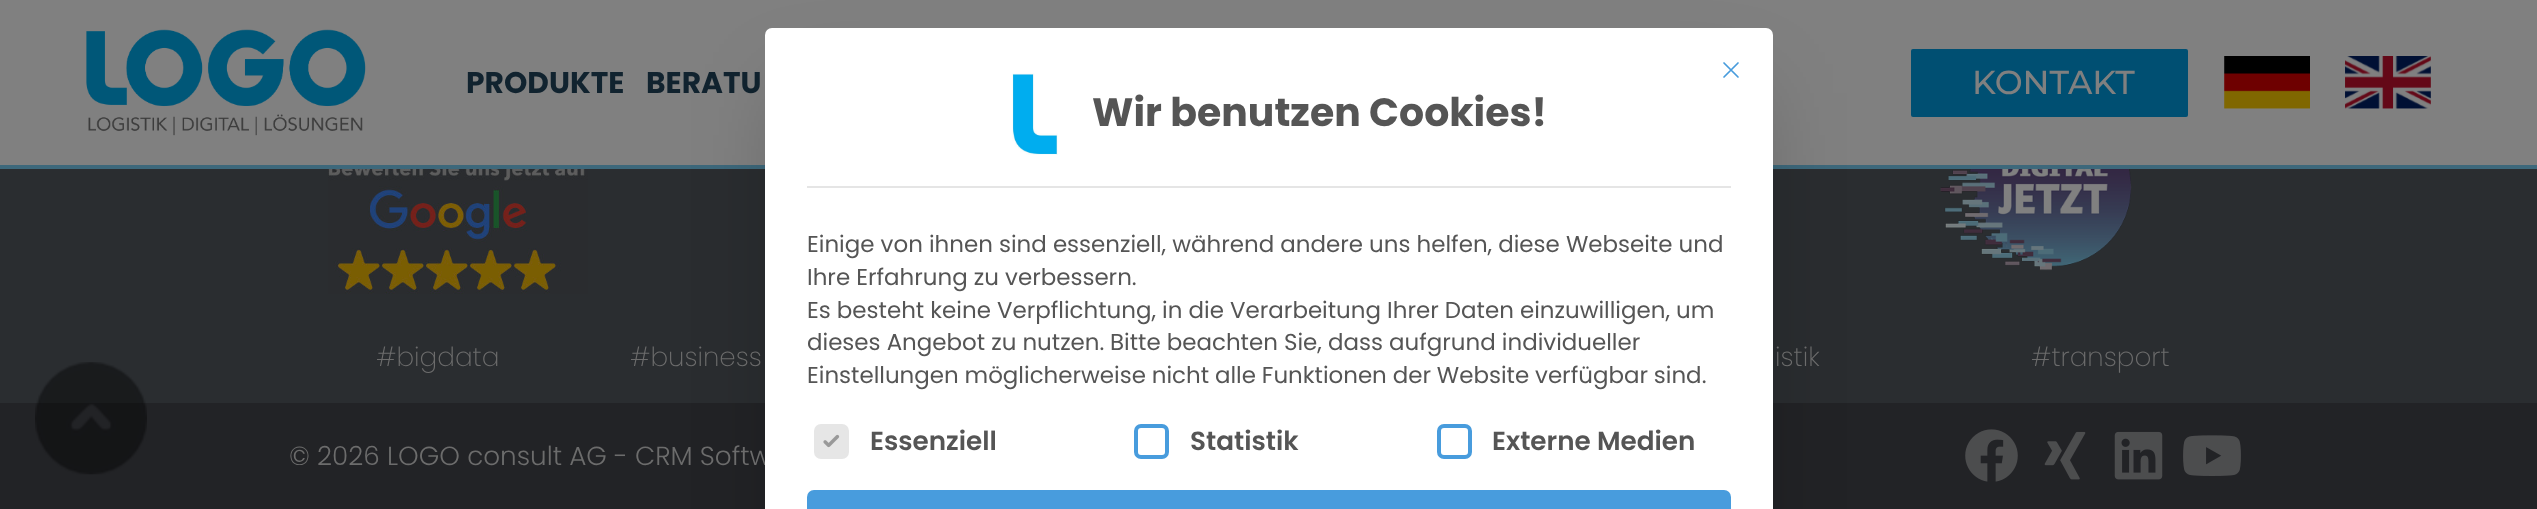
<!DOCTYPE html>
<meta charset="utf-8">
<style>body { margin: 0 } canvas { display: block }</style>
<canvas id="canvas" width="2537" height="509"></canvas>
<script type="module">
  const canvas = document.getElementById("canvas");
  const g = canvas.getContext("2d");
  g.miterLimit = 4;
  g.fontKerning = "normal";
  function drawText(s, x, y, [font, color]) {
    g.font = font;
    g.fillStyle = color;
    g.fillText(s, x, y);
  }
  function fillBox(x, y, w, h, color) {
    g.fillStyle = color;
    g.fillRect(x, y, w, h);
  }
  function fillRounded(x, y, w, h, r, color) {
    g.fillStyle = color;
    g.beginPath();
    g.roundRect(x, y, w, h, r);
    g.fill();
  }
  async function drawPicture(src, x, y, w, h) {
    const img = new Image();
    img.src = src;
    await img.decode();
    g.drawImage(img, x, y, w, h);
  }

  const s1 = ["bold 29.75px Poppins", "#11232F"];
  const s2 = ["500 33.25px Montserrat", "#808080"];
  const s3 = ["300 26.25px Poppins", "#6C6C6C"];
  const s4 = ["bold 39.4px Poppins", "#555555"];
  const s5 = ["22.95px Poppins", "#555555"];
  const s6 = ["600 26.25px Poppins", "#555555"];
  const s7 = ["200 26.25px Poppins", "#6C6C6C"];

  fillBox(0, 0, 2537, 509, "#2A2D30");
  fillBox(0, 0, 2537, 165, "#808080");
  fillBox(0, 165, 2537, 4, "#3D687B");
  await drawPicture("pic1.png", 86, 29, 280, 107);
  drawText("PRODUKTE", 466, 93, s1);
  drawText("BERATU", 646, 93, s1);
  fillRounded(1911, 49, 277, 68, 2, "#004F72");
  drawText("KONTAKT", 1972, 94, s2);
  await drawPicture("pic2.png", 2224, 56, 86, 53);
  await drawPicture("pic3.png", 2345, 56, 86, 53);
  fillBox(0, 403, 2537, 106, "#222326");
  g.fillStyle = "rgba(0, 0, 0, 0.25)";
  g.filter = "blur(44px)";
  g.beginPath();
  g.rect(786, 93, 966, 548);
  g.fill();
  g.filter = "none";
  drawText("© 2026 LOGO consult AG - CRM Softw", 289, 465, s3);
  g.fillStyle = "#FFFFFF";
  g.beginPath();
  g.roundRect(765, 28, 1008, 481, [7, 7, 0, 0]);
  g.fill();
  g.beginPath();
  g.moveTo(1724, 77);
  g.lineTo(1738, 63);
  g.moveTo(1724, 63);
  g.lineTo(1738, 77);
  g.strokeStyle = "#489CDD";
  g.lineWidth = 1.7;
  g.lineCap = "round";
  g.lineJoin = "round";
  g.stroke();
  fillBox(807, 186, 924, 2, "#E5E5E5");
  await drawPicture("pic4.png", 1012, 73, 46, 82);
  drawText("Wir benutzen Cookies!", 1092, 126, s4);
  drawText("Einige von ihnen sind essenziell, während andere uns helfen, diese Webseite und", 807, 252, s5);
  drawText("Ihre Erfahrung zu verbessern.", 807, 285, s5);
  drawText("Es besteht keine Verpflichtung, in die Verarbeitung Ihrer Daten einzuwilligen, um", 807, 318, s5);
  drawText("dieses Angebot zu nutzen.", 807, 350, s5);
  drawText("Bitte beachten Sie, dass aufgrund individueller", 1110, 350, s5);
  g.wordSpacing = "-0.25px";
  drawText("Einstellungen möglicherweise nicht alle Funktionen der Website verfügbar sind.", 807, 383, s5);
  g.fillStyle = "#E6E6E6";
  g.beginPath();
  g.roundRect(816, 426, 31, 31, 5);
  g.fill();
  g.strokeStyle = "#E6E6E6";
  g.lineWidth = 4;
  g.lineJoin = "miter";
  g.stroke();
  await drawPicture("pic5.png", 823, 434, 17, 14);
  g.wordSpacing = "0px";
  drawText("Essenziell", 870, 450, s6);
  g.beginPath();
  g.roundRect(1136, 426, 31, 31, 5);
  g.strokeStyle = "#489CDD";
  g.stroke();
  drawText("Statistik", 1190, 450, s6);
  g.beginPath();
  g.roundRect(1439, 426, 31, 31, 5);
  g.stroke();
  drawText("Externe Medien", 1492, 450, s6);
  g.fillStyle = "#489CDD";
  g.beginPath();
  g.roundRect(807, 490, 924, 19, [7, 7, 0, 0]);
  g.fill();
  await drawPicture("pic6.png", 35, 362, 112, 113);
  await drawPicture("pic7.png", 328, 169, 260, 125);
  await drawPicture("pic8.png", 1940, 169, 192, 102);
  drawText("#bigdata", 376, 366, s7);
  drawText("#business", 630, 366, s7);
  drawText("istik", 1775, 366, s7);
  drawText("#transport", 2031, 366, s7);
  await drawPicture("pic9.png", 1965, 429, 53, 53);
  await drawPicture("pic10.png", 2044, 431, 42, 49);
  await drawPicture("pic11.png", 2114, 431, 49, 49);
  await drawPicture("pic12.png", 2183, 435, 58, 41);
</script>
